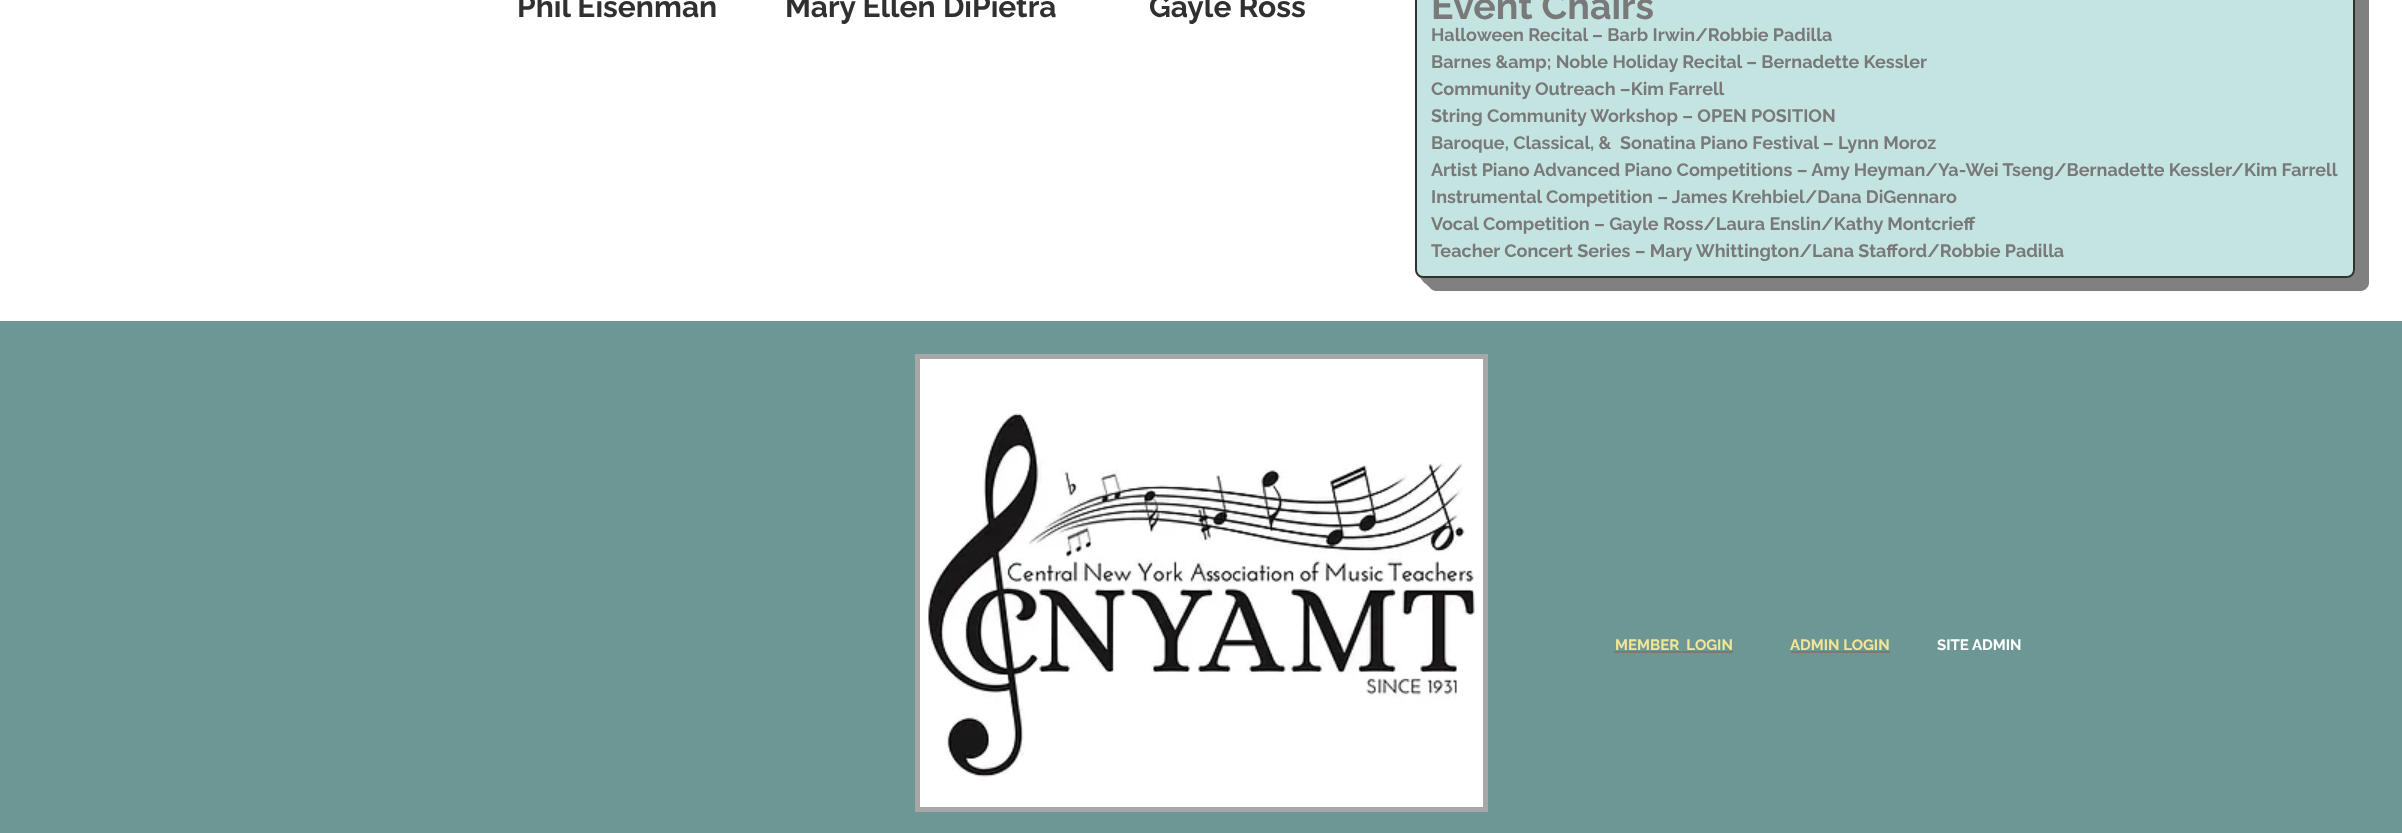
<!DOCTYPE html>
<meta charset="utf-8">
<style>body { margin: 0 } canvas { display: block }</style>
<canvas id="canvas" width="2402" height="833"></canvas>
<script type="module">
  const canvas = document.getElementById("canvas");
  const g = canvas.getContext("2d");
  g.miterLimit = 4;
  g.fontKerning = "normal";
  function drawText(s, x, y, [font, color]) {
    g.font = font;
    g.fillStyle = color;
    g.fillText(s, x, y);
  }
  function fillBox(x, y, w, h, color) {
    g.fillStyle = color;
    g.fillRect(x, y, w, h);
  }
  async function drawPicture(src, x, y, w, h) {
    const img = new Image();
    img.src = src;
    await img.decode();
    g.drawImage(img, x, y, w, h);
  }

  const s1 = ["bold 30px Raleway", "#303030"];
  const s2 = ["bold 37.5px Raleway", "#797979"];
  const s3 = ["bold 18px Raleway", "#797979"];
  const s4 = ["bold 15px Raleway", "#F3E597"];
  const s5 = ["bold 15px Raleway", "#FFFFFF"];

  fillBox(0, 0, 2402, 833, "#FFFFFF");
  drawText("Phil Eisenman", 517, 17, s1);
  drawText("Mary Ellen DiPietra", 785, 17, s1);
  drawText("Gayle Ross", 1149, 17, s1);
  g.fillStyle = "#808080";
  g.beginPath();
  g.moveTo(1428, 278);
  g.lineTo(1428, 283);
  g.bezierCurveTo(1428, 287, 1432, 291, 1436, 291);
  g.lineTo(2361, 291);
  g.bezierCurveTo(2365, 291, 2369, 287, 2369, 283);
  g.lineTo(2369, -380);
  g.bezierCurveTo(2369, -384, 2365, -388, 2361, -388);
  g.lineTo(2355, -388);
  g.lineTo(2355, 270);
  g.bezierCurveTo(2355, 274, 2352, 278, 2348, 278);
  g.closePath();
  g.fill();
  g.beginPath();
  g.moveTo(1425, 278);
  g.lineTo(1425, 280);
  g.bezierCurveTo(1425, 284, 1429, 288, 1433, 288);
  g.lineTo(2358, 288);
  g.bezierCurveTo(2362, 288, 2366, 284, 2366, 280);
  g.lineTo(2366, -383);
  g.bezierCurveTo(2366, -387, 2362, -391, 2358, -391);
  g.lineTo(2355, -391);
  g.lineTo(2355, 270);
  g.bezierCurveTo(2355, 274, 2352, 278, 2348, 278);
  g.closePath();
  g.fill();
  g.beginPath();
  g.moveTo(1422, 278);
  g.bezierCurveTo(1422, 282, 1426, 285, 1430, 285);
  g.lineTo(2355, 285);
  g.bezierCurveTo(2359, 285, 2363, 281, 2363, 277);
  g.lineTo(2363, -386);
  g.bezierCurveTo(2363, -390, 2359, -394, 2355, -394);
  g.lineTo(2355, 270);
  g.bezierCurveTo(2355, 274, 2352, 278, 2348, 278);
  g.closePath();
  g.fill();
  g.beginPath();
  g.moveTo(1420, 277);
  g.bezierCurveTo(1421, 280, 1424, 282, 1427, 282);
  g.lineTo(2352, 282);
  g.bezierCurveTo(2356, 282, 2360, 278, 2360, 274);
  g.lineTo(2360, -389);
  g.bezierCurveTo(2360, -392, 2358, -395, 2355, -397);
  g.lineTo(2355, 270);
  g.bezierCurveTo(2355, 274, 2352, 278, 2348, 278);
  g.lineTo(1422, 278);
  g.closePath();
  g.fill();
  g.beginPath();
  g.moveTo(1418, 276);
  g.bezierCurveTo(1420, 278, 1422, 279, 1424, 279);
  g.lineTo(2349, 279);
  g.bezierCurveTo(2353, 279, 2357, 275, 2357, 271);
  g.lineTo(2357, -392);
  g.bezierCurveTo(2357, -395, 2356, -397, 2354, -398);
  g.bezierCurveTo(2355, -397, 2355, -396, 2355, -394);
  g.lineTo(2355, 270);
  g.bezierCurveTo(2355, 274, 2352, 278, 2348, 278);
  g.lineTo(1422, 278);
  g.bezierCurveTo(1421, 278, 1419, 277, 1418, 276);
  g.closePath();
  g.fill();
  g.fillStyle = "#C4E4E2";
  g.beginPath();
  g.roundRect(1416, -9, 938, 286, 7);
  g.fill();
  g.strokeStyle = "#303030";
  g.lineWidth = 2;
  g.stroke();
  drawText("Event Chairs", 1431, 19, s2);
  drawText("Halloween Recital – Barb Irwin/Robbie Padilla", 1431, 41, s3);
  drawText("Barnes &amp; Noble Holiday Recital – Bernadette Kessler", 1431, 68, s3);
  drawText("Community Outreach –Kim Farrell", 1431, 95, s3);
  drawText("String Community Workshop – OPEN POSITION", 1431, 122, s3);
  drawText("Baroque, Classical, &  Sonatina Piano Festival – Lynn Moroz", 1431, 149, s3);
  drawText("Artist Piano Advanced Piano Competitions – Amy Heyman/Ya-Wei Tseng/Bernadette Kessler/Kim Farrell", 1431, 176, s3);
  drawText("Instrumental Competition – James Krehbiel/Dana DiGennaro", 1431, 203, s3);
  drawText("Vocal Competition – Gayle Ross/Laura Enslin/Kathy Montcrieff", 1431, 230, s3);
  drawText("Teacher Concert Series – Mary Whittington/Lana Stafford/Robbie Padilla", 1431, 257, s3);
  fillBox(0, 321, 2402, 512, "#6D9794");
  g.fillStyle = "#FFFFFF";
  g.beginPath();
  g.rect(917.5, 356.5, 568, 453);
  g.fill();
  g.strokeStyle = "#A8A7A7";
  g.lineWidth = 5;
  g.stroke();
  await drawPicture("pic1.png", 928, 409, 547, 372);
  drawText("MEMBER  LOGIN", 1615, 650, s4);
  fillBox(1614, 651, 119, 2, "#797979");
  drawText("ADMIN LOGIN", 1790, 650, s4);
  fillBox(1791, 651, 99, 2, "#797979");
  drawText("SITE ADMIN", 1937, 650, s5);
</script>
